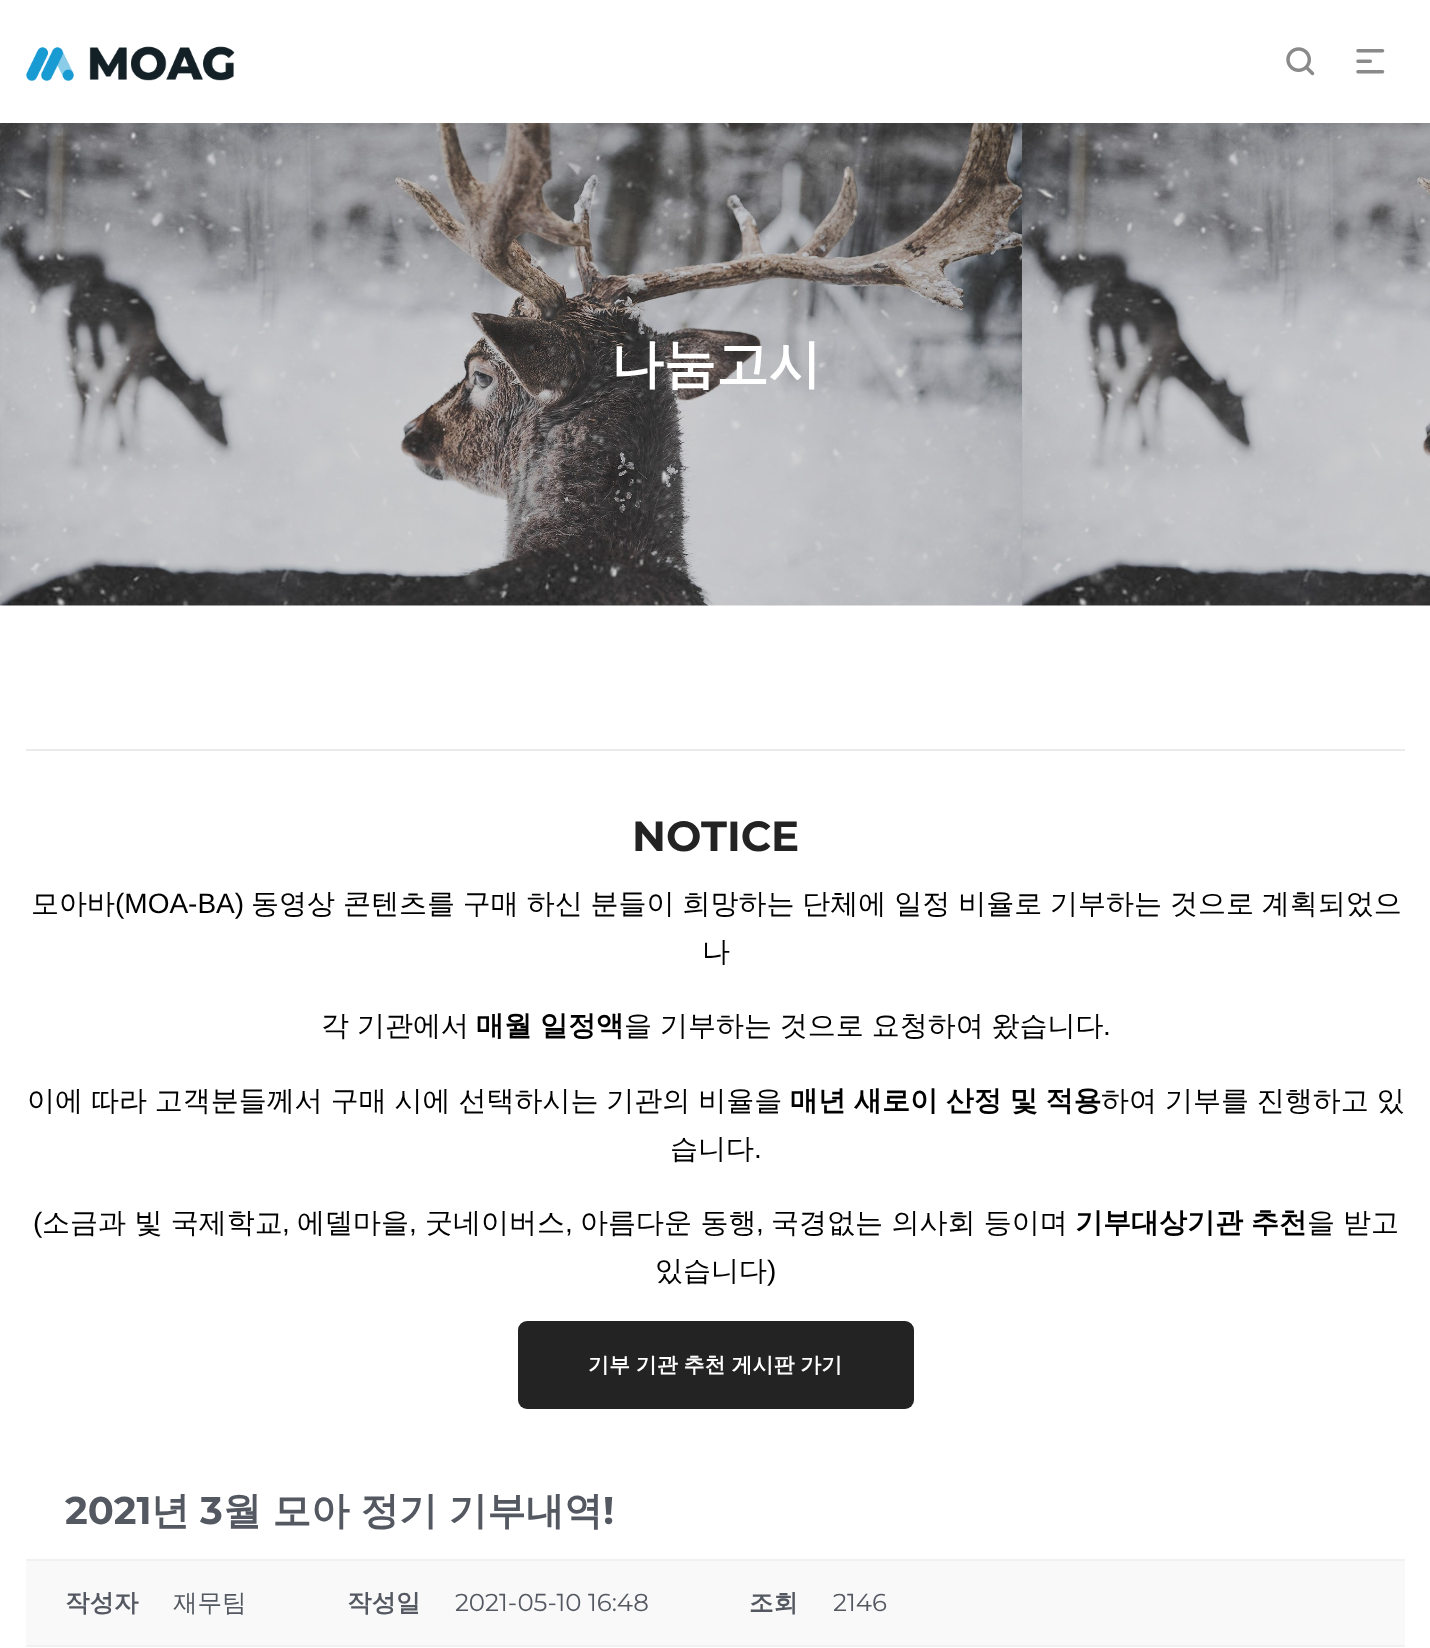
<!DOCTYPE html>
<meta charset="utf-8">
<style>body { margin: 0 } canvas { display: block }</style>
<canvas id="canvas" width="1430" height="1648"></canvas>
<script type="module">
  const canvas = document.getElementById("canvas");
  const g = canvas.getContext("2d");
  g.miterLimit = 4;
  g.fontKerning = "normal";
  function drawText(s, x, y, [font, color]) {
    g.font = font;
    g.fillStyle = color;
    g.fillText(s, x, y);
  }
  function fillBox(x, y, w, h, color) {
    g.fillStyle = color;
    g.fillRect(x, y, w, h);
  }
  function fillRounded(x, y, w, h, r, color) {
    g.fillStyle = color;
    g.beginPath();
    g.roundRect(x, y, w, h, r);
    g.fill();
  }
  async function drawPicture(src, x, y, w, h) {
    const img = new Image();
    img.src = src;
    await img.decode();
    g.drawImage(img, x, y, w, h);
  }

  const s1 = ["bold 52.5px WenQuanYi Zen Hei", "#FFFFFF"];
  const s2 = ["bold 42px Montserrat", "#232324"];
  const s3 = ["500 28px WenQuanYi Zen Hei", "#000000"];
  const s4 = ["28px Liberation Sans", "#000000"];
  const s5 = ["bold 28px WenQuanYi Zen Hei", "#000000"];
  const s6 = ["bold 21px WenQuanYi Zen Hei", "#FFFFFF"];
  const s7 = ["bold 38.5px Montserrat", "#545861"];
  const s8 = ["bold 38.5px WenQuanYi Zen Hei", "#545861"];
  const s9 = ["bold 24.5px WenQuanYi Zen Hei", "#545861"];
  const s10 = ["500 24.5px WenQuanYi Zen Hei", "#545861"];
  const s11 = ["24.5px Montserrat", "#545861"];

  fillBox(0, 0, 1430, 1648, "#FFFFFF");
  await drawPicture("pic1.png", 26, 46, 209, 35);
  await drawPicture("pic2.png", 1286, 47, 29, 29);
  await drawPicture("pic3.png", 1356, 49, 29, 25);
  await drawPicture("pic4.png", 0, 123, 1430, 483);
  drawText("나눔고시", 611, 382, s1);
  fillBox(26, 749, 1379, 2, "#EBEBEB");
  drawText("NOTICE", 632, 851, s2);
  drawText("모아바", 31, 913, s3);
  drawText("(MOA-BA)", 115, 913, s4);
  g.wordSpacing = "-0.5px";
  drawText("동영상 콘텐츠를 구매 하신 분들이 희망하는 단체에 일정 비율로 기부하는 것으로 계획되었으", 251, 913, s3);
  g.wordSpacing = "0px";
  drawText("나", 702, 961, s3);
  g.wordSpacing = "-0.5px";
  drawText("각 기관에서", 321, 1035, s3);
  drawText("매월 일정액", 476, 1035, s5);
  drawText("을 기부하는 것으로 요청하여 왔습니다", 624, 1035, s3);
  g.wordSpacing = "0px";
  drawText(".", 1103, 1035, s4);
  g.wordSpacing = "-0.5px";
  drawText("이에 따라 고객분들께서 구매 시에 선택하시는 기관의 비율을", 27, 1110, s3);
  drawText("매년 새로이 산정 및 적용", 790, 1110, s5);
  drawText("하여 기부를 진행하고 있", 1101, 1110, s3);
  g.wordSpacing = "0px";
  drawText("습니다", 670, 1158, s3);
  drawText(".", 754, 1158, s4);
  drawText("(", 33, 1232, s4);
  drawText("소금과 빛 국제학교", 42, 1232, s3);
  drawText(",", 282, 1232, s4);
  drawText("에델마을", 297, 1232, s3);
  drawText(",", 409, 1232, s4);
  drawText("굿네이버스", 425, 1232, s3);
  drawText(",", 565, 1232, s4);
  drawText("아름다운 동행", 580, 1232, s3);
  drawText(",", 756, 1232, s4);
  drawText("국경없는 의사회 등이며", 771, 1232, s3);
  g.wordSpacing = "-0.5px";
  drawText("기부대상기관 추천", 1075, 1232, s5);
  drawText("을 받고", 1307, 1232, s3);
  g.wordSpacing = "0px";
  drawText("있습니다", 655, 1280, s3);
  drawText(")", 767, 1280, s4);
  fillRounded(518, 1321, 396, 88, 9, "#232324");
  g.wordSpacing = "-0.5px";
  drawText("기부 기관 추천 게시판 가기", 588, 1372, s6);
  g.wordSpacing = "0px";
  drawText("2021", 65, 1524, s7);
  drawText("년", 151, 1524, s8);
  drawText("3", 200, 1524, s7);
  g.wordSpacing = "-0.5px";
  drawText("월 모아 정기 기부내역", 223, 1524, s8);
  g.wordSpacing = "0px";
  drawText("!", 603, 1524, s7);
  fillBox(26, 1561, 1379, 84, "#F9F9F9");
  fillBox(26, 1559, 1379, 2, "#F1F1F1");
  fillBox(26, 1645, 1379, 2, "#F1F1F1");
  drawText("작성자", 65, 1611, s9);
  drawText("재무팀", 173, 1611, s10);
  drawText("작성일", 347, 1611, s9);
  drawText("2021-05-10 16:48", 455, 1611, s11);
  drawText("조회", 749, 1611, s9);
  drawText("2146", 833, 1611, s11);
</script>
